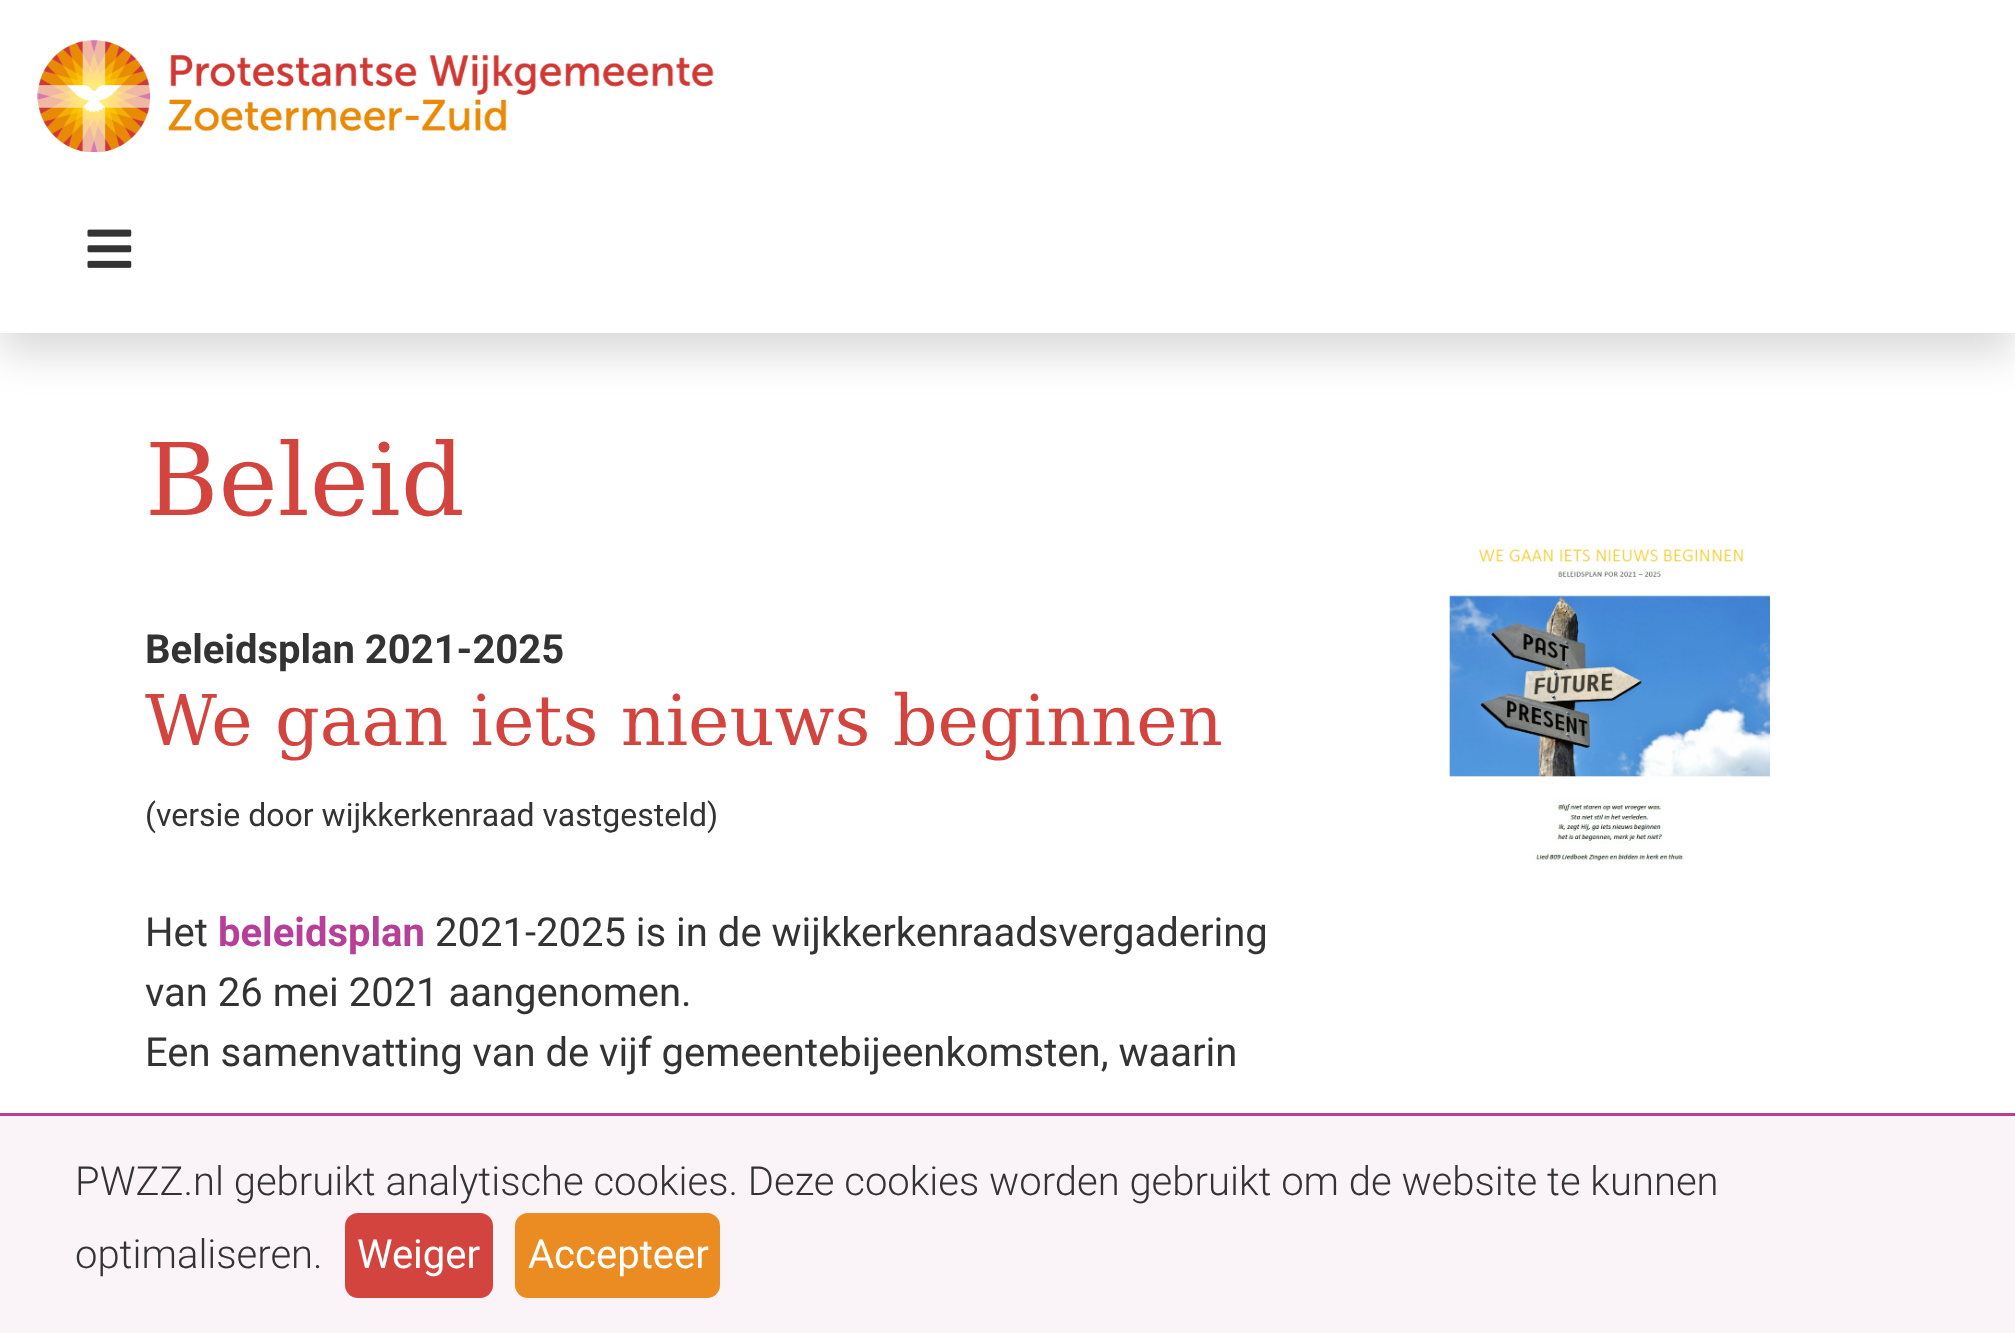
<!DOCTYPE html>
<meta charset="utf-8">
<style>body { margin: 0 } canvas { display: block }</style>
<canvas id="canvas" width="2015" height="1333"></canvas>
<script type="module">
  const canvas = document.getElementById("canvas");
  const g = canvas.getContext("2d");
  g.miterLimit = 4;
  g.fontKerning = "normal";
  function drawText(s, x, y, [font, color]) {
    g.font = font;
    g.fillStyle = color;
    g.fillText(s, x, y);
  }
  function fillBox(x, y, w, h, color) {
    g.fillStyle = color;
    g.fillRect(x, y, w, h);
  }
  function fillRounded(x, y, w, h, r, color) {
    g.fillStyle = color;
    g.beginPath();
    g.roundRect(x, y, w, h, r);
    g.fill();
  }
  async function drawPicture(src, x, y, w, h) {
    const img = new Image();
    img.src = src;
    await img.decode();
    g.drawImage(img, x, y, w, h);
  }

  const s1 = ["100px DejaVu Serif", "#D3443F"];
  const s2 = ["bold 40px Roboto", "#333333"];
  const s3 = ["70px DejaVu Serif", "#D3443F"];
  const s4 = ["32px Roboto", "#333333"];
  const s5 = ["40px Roboto", "#333333"];
  const s6 = ["bold 40px Roboto", "#B63F97"];
  const s7 = ["300 40px Roboto", "#333333"];
  const s8 = ["40px Roboto", "#FFFFFF"];

  fillBox(0, 0, 2015, 1333, "#FFFFFF");
  g.fillStyle = "rgba(0, 0, 0, 0.15)";
  g.filter = "blur(20px)";
  g.beginPath();
  g.rect(0, 20, 2015, 333);
  g.fill();
  g.filter = "none";
  fillBox(0, 0, 2015, 333, "#FFFFFF");
  await drawPicture("pic1.png", 37, 40, 677, 112);
  await drawPicture("pic2.png", 87, 229, 45, 39);
  drawText("Beleid", 145, 515, s1);
  drawText("Beleidsplan 2021-2025", 145, 663, s2);
  drawText("We gaan iets nieuws beginnen", 145, 745, s3);
  drawText("(versie door wijkkerkenraad vastgesteld)", 145, 826, s4);
  drawText("Het", 145, 946, s5);
  drawText("beleidsplan", 218, 946, s6);
  drawText("2021-2025 is in de wijkkerkenraadsvergadering", 435, 946, s5);
  drawText("van 26 mei 2021 aangenomen.", 145, 1006, s5);
  drawText("Een samenvatting van de vijf gemeentebijeenkomsten, waarin", 145, 1066, s5);
  await drawPicture("pic3.png", 1449, 547, 325, 317);
  fillBox(0, 1116, 2015, 217, "#FAF3F8");
  fillBox(0, 1113, 2015, 3, "#B63F97");
  drawText("PWZZ.nl gebruikt analytische cookies. Deze cookies worden gebruikt om de website te kunnen", 75, 1195, s7);
  drawText("optimaliseren.", 75, 1268, s7);
  fillRounded(345, 1213, 148, 85, 13, "#D3443F");
  drawText("Weiger", 357, 1268, s8);
  fillRounded(515, 1213, 205, 85, 13, "#EB8C23");
  drawText("Accepteer", 528, 1268, s8);
</script>
